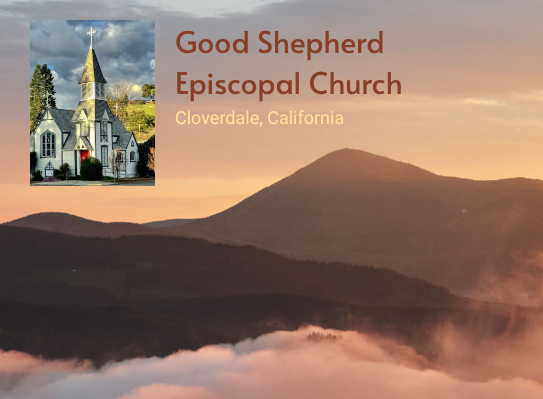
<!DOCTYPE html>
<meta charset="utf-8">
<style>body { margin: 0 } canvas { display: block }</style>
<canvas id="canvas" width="543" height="399"></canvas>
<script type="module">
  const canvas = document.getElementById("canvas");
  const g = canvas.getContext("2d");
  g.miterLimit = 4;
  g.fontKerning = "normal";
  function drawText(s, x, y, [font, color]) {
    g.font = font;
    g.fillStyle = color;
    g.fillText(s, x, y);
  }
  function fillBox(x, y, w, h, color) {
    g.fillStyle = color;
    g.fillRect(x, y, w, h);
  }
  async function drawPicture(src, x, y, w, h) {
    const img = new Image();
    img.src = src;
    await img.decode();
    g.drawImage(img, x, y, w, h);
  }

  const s1 = ["30px Alata", "#873F28"];
  const s2 = ["18px Roboto", "#FEE294"];

  fillBox(0, 0, 543, 399, "#FFFFFF");
  await drawPicture("pic1.png", 0, 0, 543, 399);
  await drawPicture("pic2.png", 30, 20, 125, 166);
  drawText("Good Shepherd", 175, 53, s1);
  drawText("Episcopal Church", 175, 94, s1);
  drawText("Cloverdale, California", 175, 124, s2);
</script>
